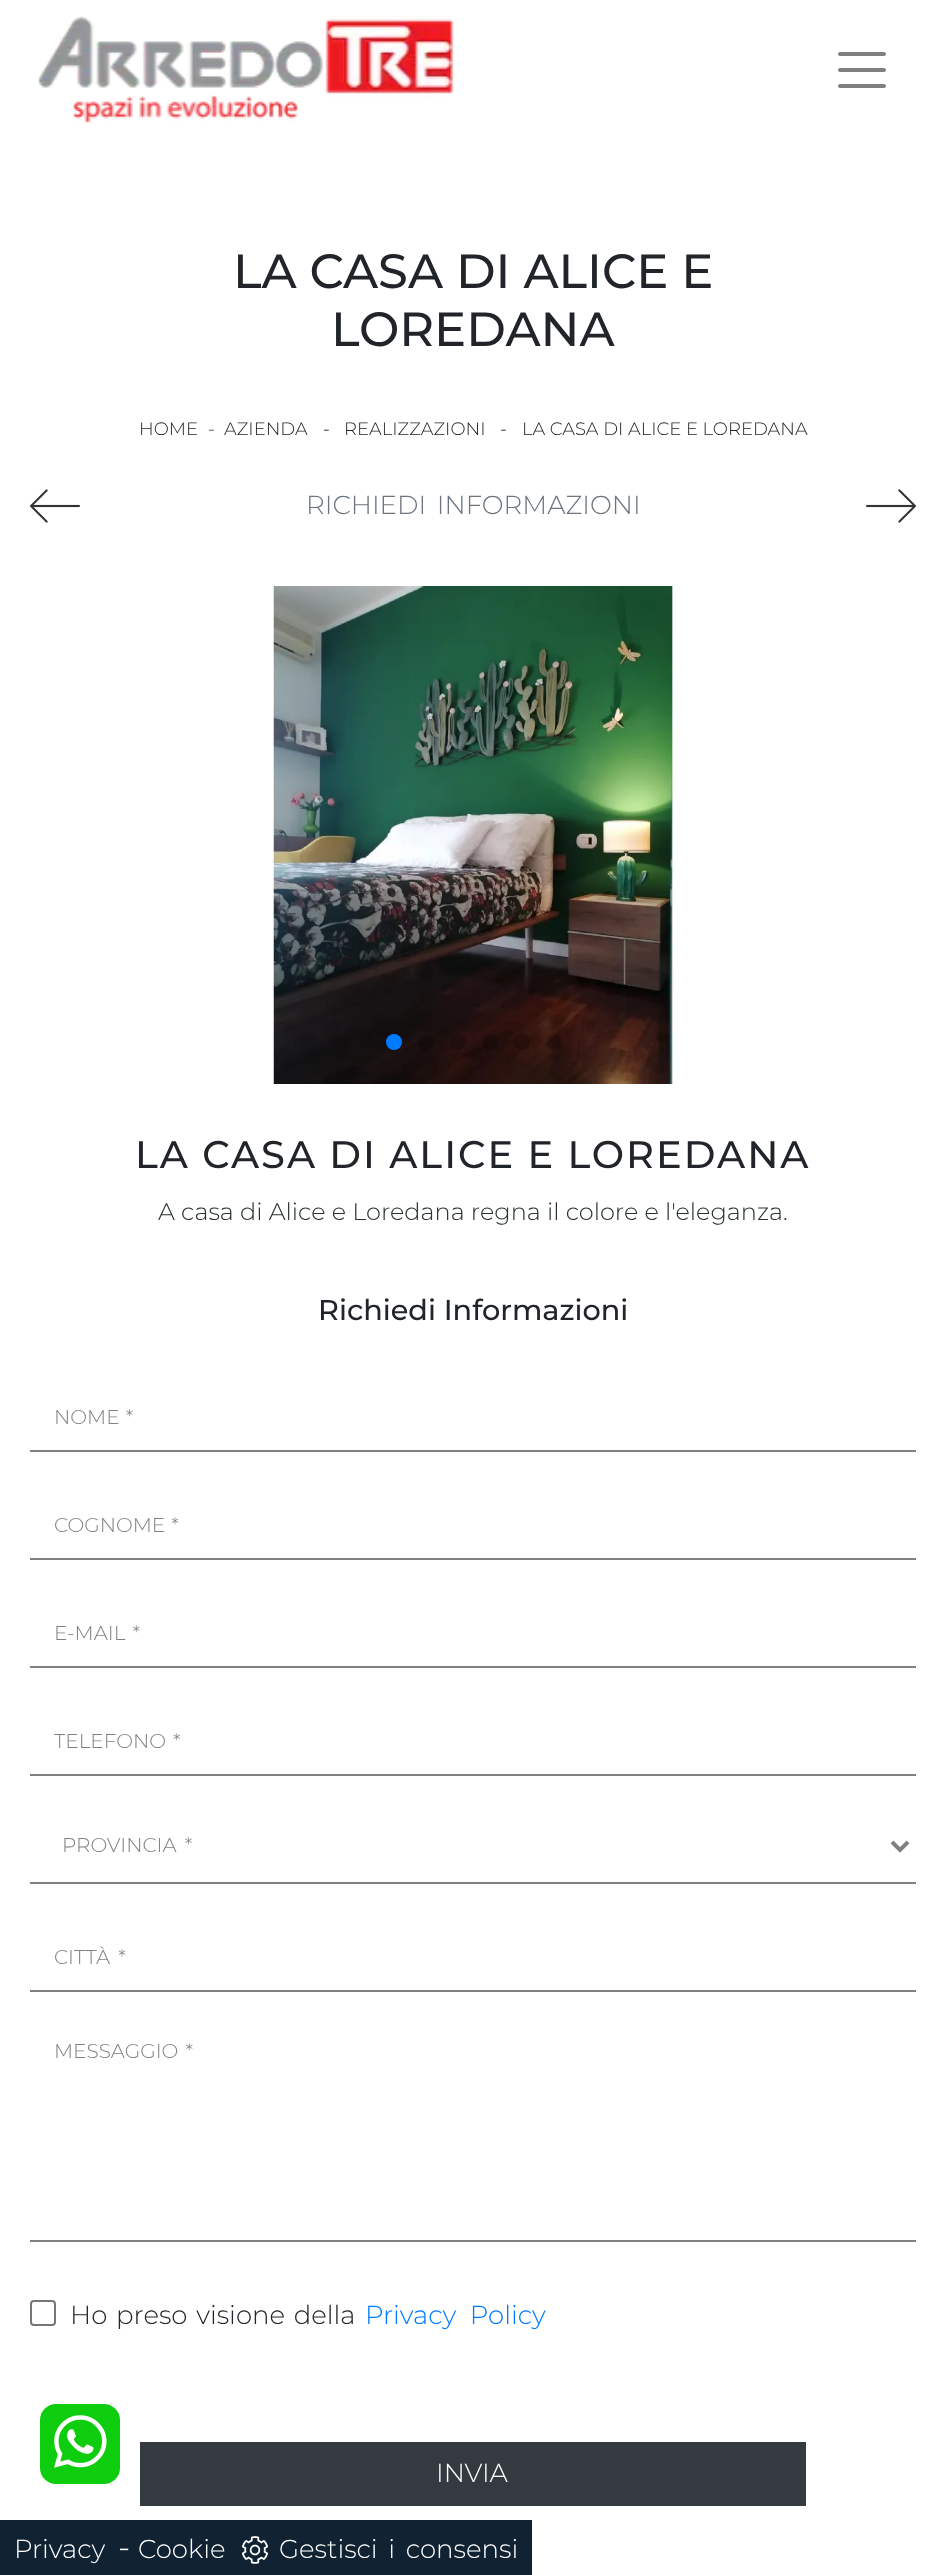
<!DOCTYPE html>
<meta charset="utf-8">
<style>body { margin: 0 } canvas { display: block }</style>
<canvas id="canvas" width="945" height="2575"></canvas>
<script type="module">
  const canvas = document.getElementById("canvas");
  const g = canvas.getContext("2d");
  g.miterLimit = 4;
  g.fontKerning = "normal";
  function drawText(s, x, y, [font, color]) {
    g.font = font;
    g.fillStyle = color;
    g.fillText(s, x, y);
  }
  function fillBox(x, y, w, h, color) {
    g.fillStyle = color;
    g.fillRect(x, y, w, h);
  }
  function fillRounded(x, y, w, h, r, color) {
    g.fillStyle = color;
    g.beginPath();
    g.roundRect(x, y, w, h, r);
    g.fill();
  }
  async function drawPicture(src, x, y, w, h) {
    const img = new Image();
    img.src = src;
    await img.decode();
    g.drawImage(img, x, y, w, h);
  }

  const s1 = ["500 48px Montserrat", "#212529"];
  const s2 = ["300 18px Montserrat", "#222222"];
  const s3 = ["300 18px Montserrat", "#293133"];
  const s4 = ["300 18px Montserrat", "#000000"];
  const s5 = ["300 26px Montserrat", "#6C757D"];
  const s6 = ["500 38.4px Montserrat", "#212529"];
  const s7 = ["300 24px Montserrat", "#293133"];
  const s8 = ["500 28.75px Montserrat", "#212529"];
  const s9 = ["300 20px Montserrat", "#808080"];
  const s10 = ["300 26px Montserrat", "#212529"];
  const s11 = ["300 26px Montserrat", "#007BFF"];
  const s12 = ["300 26px Montserrat", "#FFFFFF"];
  const s13 = ["300 32px Montserrat", "#FFFFFF"];

  fillBox(0, 0, 945, 2575, "#FFFFFF");
  await drawPicture("pic1.png", 38, 16, 416, 107);
  g.beginPath();
  g.moveTo(840, 54);
  g.lineTo(884, 54);
  g.moveTo(840, 70);
  g.lineTo(884, 70);
  g.moveTo(840, 86);
  g.lineTo(884, 86);
  g.strokeStyle = "#808080";
  g.lineWidth = 4;
  g.lineCap = "round";
  g.stroke();
  drawText("LA CASA DI ALICE E", 233, 288, s1);
  drawText("LOREDANA", 331, 346, s1);
  drawText("HOME", 139, 435, s2);
  drawText("-", 208, 435, s3);
  drawText("AZIENDA", 224, 435, s2);
  drawText("-", 323, 435, s4);
  drawText("REALIZZAZIONI", 344, 435, s2);
  drawText("-", 500, 435, s4);
  drawText("LA CASA DI ALICE E LOREDANA", 522, 435, s2);
  await drawPicture("pic2.png", 30, 489, 50, 34);
  g.wordSpacing = "4px";
  drawText("RICHIEDI INFORMAZIONI", 306, 514, s5);
  await drawPicture("pic3.png", 866, 489, 50, 34);
  await drawPicture("pic4.png", 272, 586, 402, 498);
  g.fillStyle = "#007AFF";
  g.beginPath();
  g.arc(394, 1042, 8, 0, Math.PI * 2);
  g.fill();
  g.fillStyle = "rgba(0, 0, 0, 0.2)";
  g.beginPath();
  g.arc(426, 1042, 8, 0, Math.PI * 2);
  g.fill();
  g.beginPath();
  g.arc(458, 1042, 8, 0, Math.PI * 2);
  g.fill();
  g.beginPath();
  g.arc(490, 1042, 8, 0, Math.PI * 2);
  g.fill();
  g.beginPath();
  g.arc(522, 1042, 8, 0, Math.PI * 2);
  g.fill();
  g.beginPath();
  g.arc(554, 1042, 8, 0, Math.PI * 2);
  g.fill();
  g.letterSpacing = "2px";
  g.wordSpacing = "0px";
  drawText("LA CASA DI ALICE E LOREDANA", 135, 1168, s6);
  g.letterSpacing = "0px";
  drawText("A casa di Alice e Loredana regna il colore e l'eleganza.", 158, 1220, s7);
  drawText("Richiedi Informazioni", 318, 1320, s8);
  fillBox(30, 1450, 886, 2, "#808080");
  g.wordSpacing = "1px";
  drawText("NOME *", 54, 1424, s9);
  fillBox(30, 1558, 886, 2, "#808080");
  drawText("COGNOME *", 54, 1532, s9);
  fillBox(30, 1666, 886, 2, "#808080");
  g.wordSpacing = "2px";
  drawText("E-MAIL *", 54, 1640, s9);
  fillBox(30, 1774, 886, 2, "#808080");
  drawText("TELEFONO *", 54, 1748, s9);
  fillBox(30, 1882, 886, 2, "#808080");
  g.beginPath();
  g.moveTo(892, 1842);
  g.lineTo(900, 1850);
  g.lineTo(908, 1842);
  g.lineCap = "butt";
  g.stroke();
  g.wordSpacing = "3px";
  drawText("PROVINCIA *", 62, 1852, s9);
  fillBox(30, 1990, 886, 2, "#808080");
  drawText("CITTÀ *", 54, 1964, s9);
  fillBox(30, 2240, 886, 2, "#808080");
  g.wordSpacing = "2px";
  drawText("MESSAGGIO *", 54, 2058, s9);
  g.beginPath();
  g.roundRect(31, 2301, 24, 24, 3);
  g.strokeStyle = "#767676";
  g.lineWidth = 2;
  g.stroke();
  drawText("Ho preso visione della", 70, 2324, s10);
  g.wordSpacing = "7px";
  drawText("Privacy Policy", 365, 2324, s11);
  fillBox(140, 2442, 666, 64, "#343A40");
  g.wordSpacing = "0px";
  drawText("INVIA", 436, 2482, s12);
  fillRounded(40, 2404, 80, 80, 16, "#0ECC0E");
  await drawPicture("pic5.png", 54, 2415, 53, 53);
  fillBox(0, 2520, 532, 55, "#112233");
  drawText("Privacy", 14, 2558, s12);
  drawText("-", 118, 2558, s13);
  drawText("Cookie", 138, 2558, s12);
  await drawPicture("pic6.png", 242, 2536, 26, 28);
  g.wordSpacing = "4px";
  drawText("Gestisci i consensi", 279, 2558, s12);
</script>
